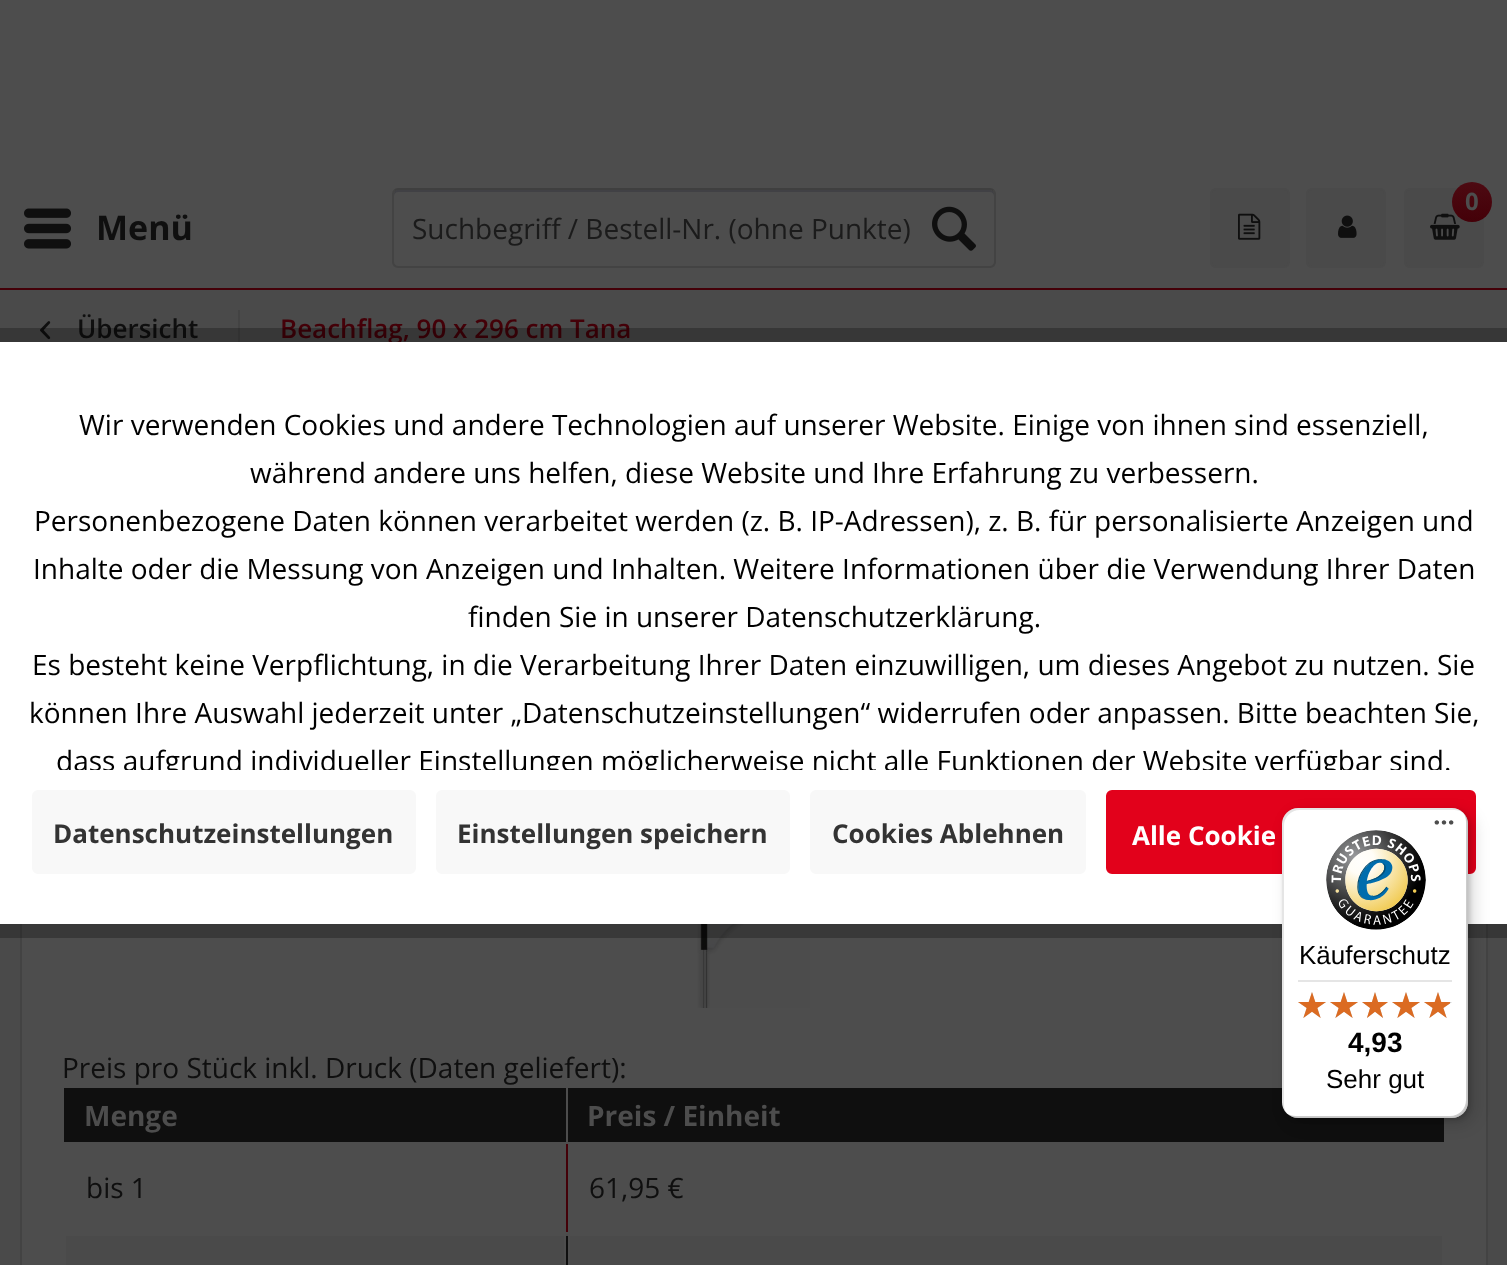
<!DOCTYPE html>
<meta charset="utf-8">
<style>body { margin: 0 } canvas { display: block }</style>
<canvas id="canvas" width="1507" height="1265"></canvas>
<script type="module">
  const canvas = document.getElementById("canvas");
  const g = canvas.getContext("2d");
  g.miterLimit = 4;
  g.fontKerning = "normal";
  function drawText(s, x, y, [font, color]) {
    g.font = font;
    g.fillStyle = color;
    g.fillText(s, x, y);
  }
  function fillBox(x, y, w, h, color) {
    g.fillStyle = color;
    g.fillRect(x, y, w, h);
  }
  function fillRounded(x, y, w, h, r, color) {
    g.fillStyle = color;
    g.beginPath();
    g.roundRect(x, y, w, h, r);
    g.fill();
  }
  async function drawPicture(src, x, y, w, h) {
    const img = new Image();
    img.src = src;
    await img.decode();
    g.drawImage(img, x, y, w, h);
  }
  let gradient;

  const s1 = ["bold 24px Open Sans", "#4D4D4D"];
  const s2 = ["bold 34px Open Sans", "#0F0F0F"];
  const s3 = ["28px Open Sans", "#1B1B1B"];
  const s4 = ["600 26px Open Sans", "#0F0F0F"];
  const s5 = ["600 26px Open Sans", "#440008"];
  const s6 = ["28px Open Sans", "#0F0F0F"];
  const s7 = ["bold 28px Open Sans", "#4D4D4D"];
  const s8 = ["28px Open Sans", "#000000"];
  const s9 = ["bold 26px Open Sans", "#333333"];
  const s10 = ["bold 26px Open Sans", "#FFFFFF"];
  const s11 = ["26px Liberation Sans", "#000000"];
  const s12 = ["bold 28px Liberation Sans", "#000000"];

  fillBox(0, 0, 1507, 1265, "#4A4A4A");
  fillBox(0, 0, 1507, 288, "#4D4D4D");
  fillBox(0, 288, 1507, 2, "#440008");
  g.fillStyle = "#4A4A4A";
  g.beginPath();
  g.roundRect(1211, 189, 78, 78, 5);
  g.fill();
  g.strokeStyle = "#4A4A4A";
  g.lineWidth = 2;
  g.stroke();
  await drawPicture("pic1.png", 1238, 213, 23, 27);
  g.beginPath();
  g.roundRect(1307, 189, 78, 78, 5);
  g.fill();
  g.stroke();
  await drawPicture("pic2.png", 1338, 215, 19, 23);
  g.beginPath();
  g.roundRect(1405, 189, 78, 78, 5);
  g.fill();
  g.stroke();
  await drawPicture("pic3.png", 1430, 213, 30, 27);
  gradient = g.createLinearGradient(1472, 182, 1472, 222);
  gradient.addColorStop(0, "#4D0A12");
  gradient.addColorStop(1, "#440008");
  g.fillStyle = gradient;
  g.beginPath();
  g.arc(1472, 202, 20, 0, Math.PI * 2);
  g.fill();
  drawText("0", 1465, 210, s1);
  await drawPicture("pic4.png", 24, 208, 47, 41);
  drawText("Menü", 96, 240, s2);
  g.fillStyle = "#414145";
  g.beginPath();
  g.moveTo(398, 192);
  g.lineTo(990, 192);
  g.bezierCurveTo(992, 192, 994, 194, 994, 196);
  g.lineTo(994, 194);
  g.bezierCurveTo(994, 192, 992, 190, 990, 190);
  g.lineTo(398, 190);
  g.bezierCurveTo(396, 190, 394, 192, 394, 194);
  g.lineTo(394, 196);
  g.bezierCurveTo(394, 194, 396, 192, 398, 192);
  g.closePath();
  g.fill();
  g.beginPath();
  g.moveTo(394.5, 190.5);
  g.bezierCurveTo(395.5, 189.5, 396.5, 189, 398, 189);
  g.lineTo(990, 189);
  g.bezierCurveTo(991.5, 189, 992.5, 189.5, 993.5, 190.5);
  g.strokeStyle = "#3F3F3F";
  g.stroke();
  g.beginPath();
  g.moveTo(993.5, 190.5);
  g.bezierCurveTo(994.5, 191.5, 995, 192.5, 995, 194);
  g.lineTo(995, 262);
  g.bezierCurveTo(995, 263.5, 994.5, 264.5, 993.5, 265.5);
  g.bezierCurveTo(992.5, 266.5, 991.5, 267, 990, 267);
  g.lineTo(398, 267);
  g.bezierCurveTo(396.5, 267, 395.5, 266.5, 394.5, 265.5);
  g.bezierCurveTo(393.5, 264.5, 393, 263.5, 393, 262);
  g.lineTo(393, 194);
  g.bezierCurveTo(393, 192.5, 393.5, 191.5, 394.5, 190.5);
  g.strokeStyle = "#434343";
  g.stroke();
  drawText("Suchbegriff / Bestell-Nr. (ohne Punkte)", 412, 239, s3);
  await drawPicture("pic5.png", 932, 206, 44, 45);
  await drawPicture("pic6.png", 40, 321, 11, 19);
  drawText("Übersicht", 77, 338, s4);
  fillBox(238, 310, 2, 36, "#434343");
  drawText("Beachflag, 90 x 296 cm Tana", 280, 338, s5);
  fillBox(22, 924, 1464, 341, "#4D4D4D");
  g.strokeRect(21, 407, 1466, 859);
  await drawPicture("pic7.png", 697, 924, 113, 84);
  drawText("Preis pro Stück inkl. Druck (Daten geliefert):", 62, 1078, s6);
  fillBox(64, 1088, 502, 54, "#0F0F0F");
  drawText("Menge", 84, 1126, s7);
  fillBox(568, 1088, 876, 54, "#0F0F0F");
  drawText("Preis / Einheit", 587, 1126, s7);
  fillBox(566, 1144, 2, 88, "#440008");
  drawText("bis 1", 86, 1198, s6);
  drawText("61,95 €", 589, 1198, s6);
  fillBox(566, 1236, 2, 29, "#0F0F0F");
  g.strokeStyle = "#4A4A4A";
  g.strokeRect(65, 1235, 1378, 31);
  g.fillStyle = "#4A4A4A";
  g.beginPath();
  g.rect(65, 1235, 500, 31);
  g.fill();
  g.strokeStyle = "#4D4D4D";
  g.stroke();
  g.beginPath();
  g.rect(569, 1235, 874, 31);
  g.fill();
  g.stroke();
  g.strokeStyle = "rgba(0, 0, 0, 0.25)";
  g.lineWidth = 14;
  g.strokeRect(-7, 335, 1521, 596);
  fillBox(0, 342, 1507, 582, "#FFFFFF");
  drawText("Wir verwenden Cookies und andere Technologien auf unserer Website. Einige von ihnen sind essenziell,", 79, 435, s8);
  drawText("während andere uns helfen, diese Website und Ihre Erfahrung zu verbessern.", 250, 483, s8);
  drawText("Personenbezogene Daten können verarbeitet werden (z. B. IP-Adressen), z. B. für personalisierte Anzeigen und", 34, 531, s8);
  drawText("Inhalte oder die Messung von Anzeigen und Inhalten. Weitere Informationen über die Verwendung Ihrer Daten", 33, 579, s8);
  drawText("finden Sie in unserer Datenschutzerklärung.", 468, 627, s8);
  drawText("Es besteht keine Verpflichtung, in die Verarbeitung Ihrer Daten einzuwilligen, um dieses Angebot zu nutzen. Sie", 32, 675, s8);
  drawText("können Ihre Auswahl jederzeit unter „Datenschutzeinstellungen“ widerrufen oder anpassen. Bitte beachten Sie,", 29, 723, s8);
  g.save();
  g.beginPath();
  g.rect(20, 392, 1468, 378);
  g.clip();
  drawText("dass aufgrund individueller Einstellungen möglicherweise nicht alle Funktionen der Website verfügbar sind.", 56, 771, s8);
  g.restore();
  g.fillStyle = "#F8F8F8";
  g.beginPath();
  g.roundRect(33, 791, 382, 82, 5);
  g.fill();
  g.strokeStyle = "#F8F8F8";
  g.lineWidth = 2;
  g.stroke();
  drawText("Datenschutzeinstellungen", 53, 843, s9);
  g.fillStyle = "#F8F8F8";
  g.beginPath();
  g.roundRect(437, 791, 352, 82, 5);
  g.fill();
  g.stroke();
  drawText("Einstellungen speichern", 457, 843, s9);
  g.fillStyle = "#F8F8F8";
  g.beginPath();
  g.roundRect(811, 791, 274, 82, 5);
  g.fill();
  g.stroke();
  drawText("Cookies Ablehnen", 832, 843, s9);
  g.fillStyle = "#E2011B";
  g.beginPath();
  g.roundRect(1107, 791, 368, 82, 5);
  g.fill();
  g.strokeStyle = "#E2011B";
  g.stroke();
  drawText("Alle Cookie", 1132, 845, s10);
  g.fillStyle = "rgba(0, 0, 0, 0.15)";
  g.filter = "blur(8px)";
  g.beginPath();
  g.roundRect(1288, 814, 186, 310, 16);
  g.fill();
  g.filter = "none";
  g.filter = "blur(2px)";
  g.beginPath();
  g.roundRect(1284, 810, 186, 310, 16);
  g.fill();
  g.filter = "none";
  fillRounded(1282, 808, 186, 310, 16, "#FFFFFF");
  g.fillStyle = "rgba(0, 0, 0, 0.1)";
  g.beginPath();
  g.moveTo(1300, 810);
  g.lineTo(1454, 810);
  g.bezierCurveTo(1458, 810, 1461, 811, 1464, 813);
  g.bezierCurveTo(1461, 810, 1457, 808, 1452, 808);
  g.lineTo(1298, 808);
  g.bezierCurveTo(1289, 808, 1282, 815, 1282, 824);
  g.lineTo(1282, 1102);
  g.bezierCurveTo(1282, 1107, 1284, 1111, 1287, 1114);
  g.bezierCurveTo(1285, 1111, 1284, 1108, 1284, 1104);
  g.lineTo(1284, 826);
  g.bezierCurveTo(1284, 817, 1291, 810, 1300, 810);
  g.closePath();
  g.fill();
  g.fillStyle = "rgba(0, 0, 0, 0.2)";
  g.beginPath();
  g.moveTo(1286, 1113);
  g.bezierCurveTo(1289, 1116, 1293, 1118, 1298, 1118);
  g.lineTo(1452, 1118);
  g.bezierCurveTo(1461, 1118, 1468, 1111, 1468, 1102);
  g.lineTo(1468, 824);
  g.bezierCurveTo(1468, 819, 1466, 815, 1463, 812);
  g.bezierCurveTo(1465, 815, 1466, 818, 1466, 822);
  g.lineTo(1466, 1100);
  g.bezierCurveTo(1466, 1109, 1459, 1116, 1450, 1116);
  g.lineTo(1296, 1116);
  g.bezierCurveTo(1292, 1116, 1289, 1115, 1286, 1113);
  g.closePath();
  g.fill();
  g.fillStyle = "rgba(50, 50, 50, 0.2)";
  g.beginPath();
  g.moveTo(1287, 1113);
  g.bezierCurveTo(1290, 1116, 1294, 1118, 1298, 1118);
  g.lineTo(1452, 1118);
  g.bezierCurveTo(1461, 1118, 1468, 1111, 1468, 1102);
  g.lineTo(1468, 824);
  g.bezierCurveTo(1468, 820, 1466, 816, 1463, 813);
  g.bezierCurveTo(1466, 816, 1467, 819, 1467, 823);
  g.lineTo(1467, 1101);
  g.bezierCurveTo(1467, 1110, 1460, 1117, 1451, 1117);
  g.lineTo(1297, 1117);
  g.bezierCurveTo(1293, 1117, 1290, 1116, 1287, 1113);
  g.closePath();
  g.fill();
  g.fillStyle = "rgba(255, 255, 255, 0.3)";
  g.beginPath();
  g.moveTo(1287, 1113);
  g.bezierCurveTo(1290, 1116, 1294, 1118, 1298, 1118);
  g.lineTo(1452, 1118);
  g.bezierCurveTo(1461, 1118, 1468, 1111, 1468, 1102);
  g.lineTo(1468, 824);
  g.bezierCurveTo(1468, 820, 1466, 816, 1463, 813);
  g.bezierCurveTo(1466, 816, 1467, 819, 1467, 823);
  g.lineTo(1467, 1101);
  g.bezierCurveTo(1467, 1110, 1460, 1117, 1451, 1117);
  g.lineTo(1297, 1117);
  g.bezierCurveTo(1293, 1117, 1290, 1116, 1287, 1113);
  g.closePath();
  g.fill();
  await drawPicture("pic8.png", 1434, 820, 20, 5);
  await drawPicture("pic9.png", 1326, 830, 100, 100);
  drawText("Käuferschutz", 1299, 964, s11);
  fillBox(1298, 980, 154, 2, "#E5E5E5");
  await drawPicture("pic10.png", 1298, 992, 28, 26);
  await drawPicture("pic10.png", 1330, 992, 28, 26);
  await drawPicture("pic11.png", 1362, 992, 26, 26);
  await drawPicture("pic10.png", 1392, 992, 28, 26);
  await drawPicture("pic10.png", 1424, 992, 28, 26);
  await drawPicture("pic12.png", 1298, 992, 28, 26);
  await drawPicture("pic12.png", 1330, 992, 28, 26);
  await drawPicture("pic13.png", 1362, 992, 26, 26);
  await drawPicture("pic12.png", 1392, 992, 28, 26);
  await drawPicture("pic14.png", 1424, 992, 26, 26);
  drawText("4,93", 1348, 1052, s12);
  drawText("Sehr gut", 1326, 1088, s11);
</script>
